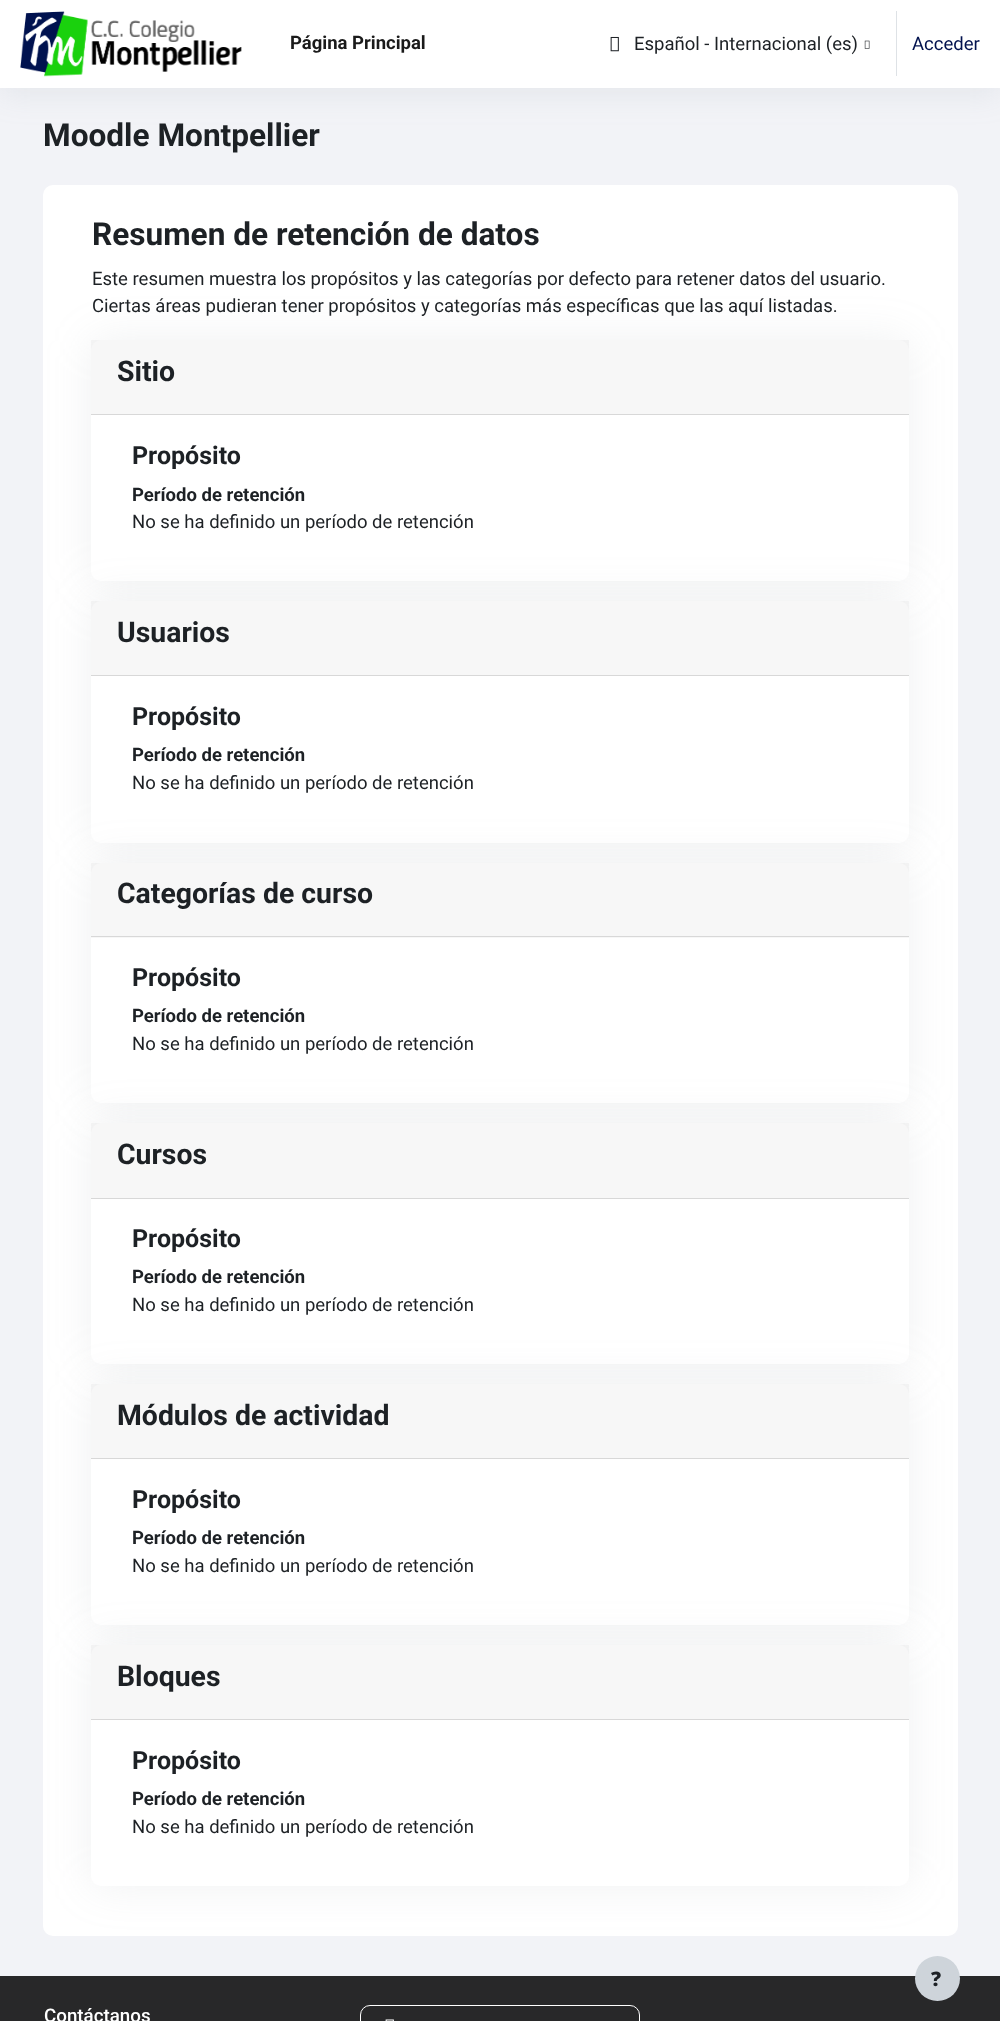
<!DOCTYPE html>
<meta charset="utf-8">
<style>body { margin: 0 } canvas { display: block }</style>
<canvas id="canvas" width="1000" height="2021"></canvas>
<script type="module">
  const canvas = document.getElementById("canvas");
  const g = canvas.getContext("2d");
  g.miterLimit = 4;
  g.fontKerning = "normal";
  function drawText(s, x, y, [font, color]) {
    g.font = font;
    g.fillStyle = color;
    g.fillText(s, x, y);
  }
  function fillBox(x, y, w, h, color) {
    g.fillStyle = color;
    g.fillRect(x, y, w, h);
  }
  function fillRounded(x, y, w, h, r, color) {
    g.fillStyle = color;
    g.beginPath();
    g.roundRect(x, y, w, h, r);
    g.fill();
  }
  async function drawPicture(src, x, y, w, h) {
    const img = new Image();
    img.src = src;
    await img.decode();
    g.drawImage(img, x, y, w, h);
  }

  const s1 = ["bold 18.5px Roboto", "#1A1A1A"];
  const s2 = ["18.5px Roboto", "#1D2125"];
  const s3 = ["18.5px Roboto", "#02124E"];
  const s4 = ["bold 31.6px Roboto", "#1D2125"];
  const s5 = ["bold 28.4px Roboto", "#1D2125"];
  const s6 = ["bold 25px Roboto", "#1D2125"];
  const s7 = ["bold 18.5px Roboto", "#1D2125"];
  const s8 = ["900 20px Noto Sans", "#1D2125"];
  const s9 = ["500 18.75px Roboto", "#FFFFFF"];

  fillBox(0, 0, 1000, 2021, "#F2F3F7");
  g.fillStyle = "rgba(140, 152, 164, 0.13)";
  g.filter = "blur(15px)";
  g.beginPath();
  g.rect(0, 8, 1000, 87);
  g.fill();
  g.filter = "none";
  fillBox(0, 0, 1000, 88, "#FFFFFF");
  await drawPicture("pic1.png", 20, 11, 222, 66);
  drawText("Página Principal", 290, 49, s1);
  await drawPicture("pic2.png", 610, 36, 9, 16);
  drawText("Español - Internacional (es)", 634, 50, s2);
  await drawPicture("pic3.png", 864, 40, 6, 9);
  fillBox(896, 11, 1, 65, "#DEE2E6");
  drawText("Acceder", 912, 50, s3);
  drawText("Moodle Montpellier", 43, 146, s4);
  fillRounded(43, 185, 915, 1751, 10, "#FFFFFF");
  drawText("Resumen de retención de datos", 92, 245, s4);
  drawText("Este resumen muestra los propósitos y las categorías por defecto para retener datos del usuario.", 92, 285, s2);
  drawText("Ciertas áreas pudieran tener propósitos y categorías más específicas que las aquí listadas.", 92, 312, s2);
  g.fillStyle = "rgba(154, 161, 171, 0.15)";
  g.filter = "blur(22px)";
  g.beginPath();
  g.roundRect(91, 340, 818, 241, 10);
  g.fill();
  g.filter = "none";
  fillRounded(91, 340, 818, 241, 10, "#FFFFFF");
  fillBox(91, 340, 818, 74, "rgba(0, 0, 0, 0.03)");
  fillBox(91, 414, 818, 1, "#D8D8D8");
  drawText("Sitio", 117, 381, s5);
  drawText("Propósito", 132, 464, s6);
  drawText("Período de retención", 132, 501, s7);
  drawText("No se ha definido un período de retención", 132, 528, s2);
  g.fillStyle = "rgba(154, 161, 171, 0.15)";
  g.filter = "blur(22px)";
  g.beginPath();
  g.roundRect(91, 601, 818, 242, 10);
  g.fill();
  g.filter = "none";
  fillRounded(91, 601, 818, 242, 10, "#FFFFFF");
  fillBox(91, 601, 818, 74, "rgba(0, 0, 0, 0.03)");
  fillBox(91, 675, 818, 1, "#D8D8D8");
  drawText("Usuarios", 117, 642, s5);
  drawText("Propósito", 132, 725, s6);
  drawText("Período de retención", 132, 761, s7);
  drawText("No se ha definido un período de retención", 132, 789, s2);
  g.fillStyle = "rgba(154, 161, 171, 0.15)";
  g.filter = "blur(22px)";
  g.beginPath();
  g.roundRect(91, 863, 818, 240, 10);
  g.fill();
  g.filter = "none";
  fillRounded(91, 863, 818, 240, 10, "#FFFFFF");
  fillBox(91, 863, 818, 75, "rgba(0, 0, 0, 0.03)");
  fillBox(91, 936, 818, 1, "#D8D8D8");
  drawText("Categorías de curso", 117, 903, s5);
  drawText("Propósito", 132, 986, s6);
  drawText("Período de retención", 132, 1022, s7);
  drawText("No se ha definido un período de retención", 132, 1050, s2);
  g.fillStyle = "rgba(154, 161, 171, 0.15)";
  g.filter = "blur(22px)";
  g.beginPath();
  g.roundRect(91, 1123, 818, 241, 10);
  g.fill();
  g.filter = "none";
  fillRounded(91, 1123, 818, 241, 10, "#FFFFFF");
  fillBox(91, 1123, 818, 75, "rgba(0, 0, 0, 0.03)");
  fillBox(91, 1198, 818, 1, "#D8D8D8");
  drawText("Cursos", 117, 1164, s5);
  drawText("Propósito", 132, 1247, s6);
  drawText("Período de retención", 132, 1283, s7);
  drawText("No se ha definido un período de retención", 132, 1311, s2);
  g.fillStyle = "rgba(154, 161, 171, 0.15)";
  g.filter = "blur(22px)";
  g.beginPath();
  g.roundRect(91, 1384, 818, 241, 10);
  g.fill();
  g.filter = "none";
  fillRounded(91, 1384, 818, 241, 10, "#FFFFFF");
  fillBox(91, 1384, 818, 74, "rgba(0, 0, 0, 0.03)");
  fillBox(91, 1458, 818, 1, "#D8D8D8");
  drawText("Módulos de actividad", 117, 1425, s5);
  drawText("Propósito", 132, 1508, s6);
  drawText("Período de retención", 132, 1544, s7);
  drawText("No se ha definido un período de retención", 132, 1572, s2);
  g.fillStyle = "rgba(154, 161, 171, 0.15)";
  g.filter = "blur(22px)";
  g.beginPath();
  g.roundRect(91, 1645, 818, 241, 10);
  g.fill();
  g.filter = "none";
  fillRounded(91, 1645, 818, 241, 10, "#FFFFFF");
  fillBox(91, 1645, 818, 74, "rgba(0, 0, 0, 0.03)");
  fillBox(91, 1719, 818, 1, "#D8D8D8");
  drawText("Bloques", 117, 1686, s5);
  drawText("Propósito", 132, 1769, s6);
  drawText("Período de retención", 132, 1805, s7);
  drawText("No se ha definido un período de retención", 132, 1833, s2);
  fillBox(0, 1976, 1000, 45, "#282829");
  g.fillStyle = "#CED4DA";
  g.beginPath();
  g.arc(937.5, 1978.5, 22.5, 0, Math.PI * 2);
  g.fill();
  drawText("?", 931, 1986, s8);
  drawText("Contáctanos", 44, 2022, s9);
  g.beginPath();
  g.roundRect(360.5, 2005.5, 279, 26, 9.5);
  g.strokeStyle = "#FFFFFF";
  g.stroke();
  await drawPicture("pic4.png", 385, 2019, 9, 2);
</script>
